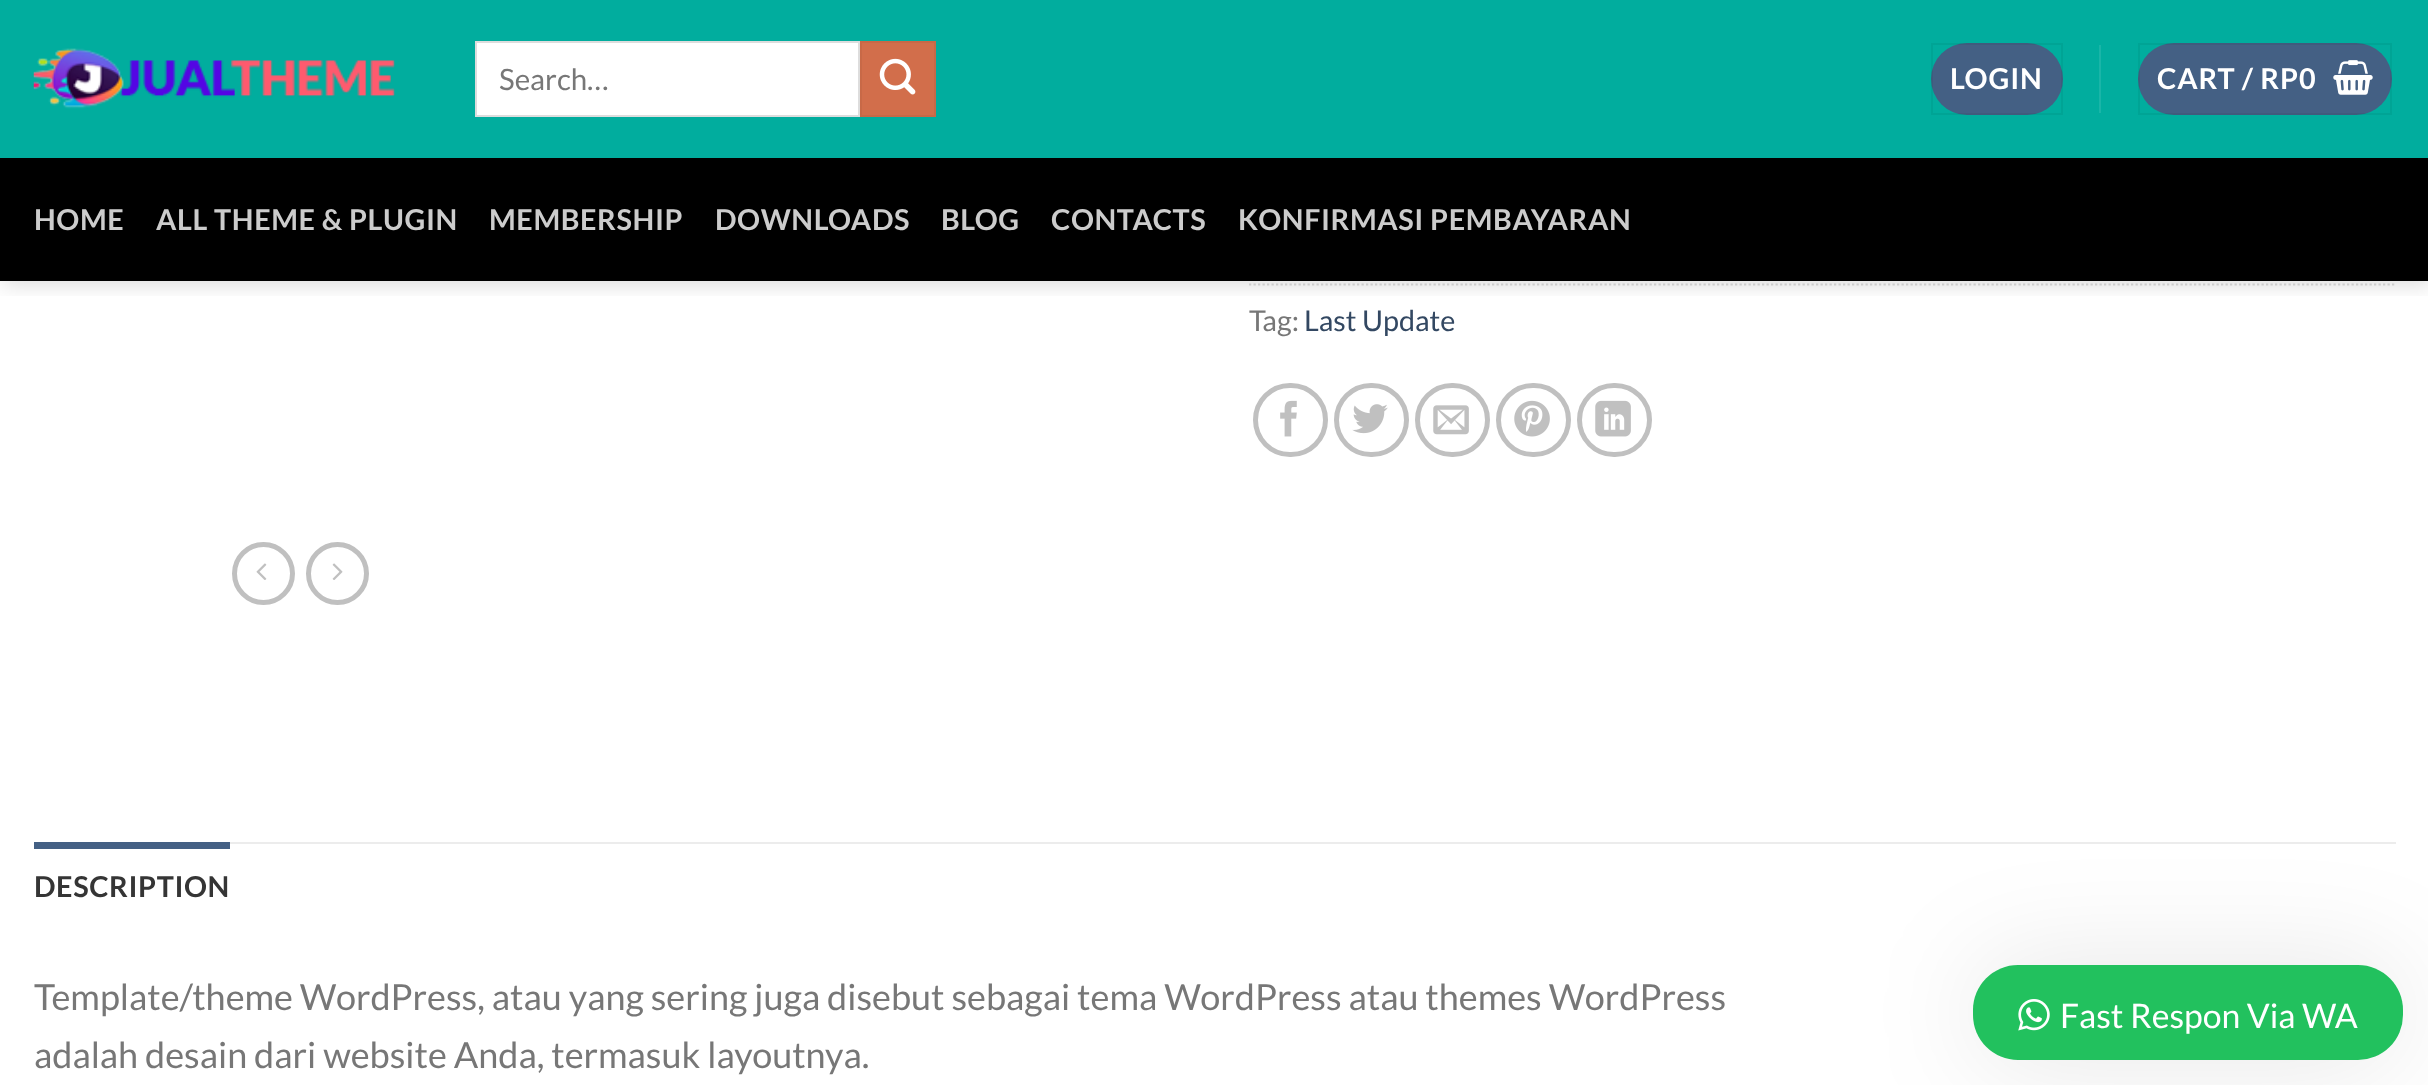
<!DOCTYPE html>
<meta charset="utf-8">
<style>body { margin: 0 } canvas { display: block }</style>
<canvas id="canvas" width="2428" height="1085"></canvas>
<script type="module">
  const canvas = document.getElementById("canvas");
  const g = canvas.getContext("2d");
  g.miterLimit = 4;
  g.fontKerning = "normal";
  function drawText(s, x, y, [font, color]) {
    g.font = font;
    g.fillStyle = color;
    g.fillText(s, x, y);
  }
  function fillBox(x, y, w, h, color) {
    g.fillStyle = color;
    g.fillRect(x, y, w, h);
  }
  function fillRounded(x, y, w, h, r, color) {
    g.fillStyle = color;
    g.beginPath();
    g.roundRect(x, y, w, h, r);
    g.fill();
  }
  async function drawPicture(src, x, y, w, h) {
    const img = new Image();
    img.src = src;
    await img.decode();
    g.drawImage(img, x, y, w, h);
  }

  const s1 = ["29.5px Lato", "#777777"];
  const s2 = ["bold 28.75px Lato", "#FFFFFF"];
  const s3 = ["bold 28.75px Lato", "#CCCCCC"];
  const s4 = ["28.75px Lato", "#777777"];
  const s5 = ["28.75px Lato", "#334862"];
  const s6 = ["bold 28.75px Lato", "#353535"];
  const s7 = ["36px Lato", "#777777"];
  const s8 = ["33.75px Lato", "#FFFFFF"];

  fillBox(0, 0, 2428, 1085, "#FFFFFF");
  fillBox(0, 0, 2428, 158, "#01AD9E");
  g.beginPath();
  g.moveTo(1249, 284.5);
  g.lineTo(2396, 284.5);
  g.strokeStyle = "#DDDDDD";
  g.lineWidth = 2.2;
  g.setLineDash([2.25, 2.25]);
  g.stroke();
  g.save();
  g.beginPath();
  g.rect(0, 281, 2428, 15);
  g.clip();
  g.fillStyle = "rgba(0, 0, 0, 0.15)";
  g.filter = "blur(11px)";
  g.beginPath();
  g.rect(2, 2, 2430, 282);
  g.fill();
  g.filter = "none";
  g.restore();
  await drawPicture("pic1.png", 33, 48, 362, 61);
  g.fillStyle = "#FFFFFF";
  g.beginPath();
  g.rect(476, 42, 383, 74);
  g.fill();
  g.lineWidth = 2;
  g.setLineDash([]);
  g.stroke();
  drawText("Search…", 499, 90, s1);
  g.fillStyle = "#D26E4B";
  g.beginPath();
  g.rect(861, 42, 74, 74);
  g.fill();
  g.strokeStyle = "#C86947";
  g.stroke();
  await drawPicture("pic2.png", 879, 58, 37, 37);
  fillRounded(1931, 43, 132, 72, 36, "#446084");
  g.strokeStyle = "rgba(0, 0, 0, 0.05)";
  g.strokeRect(1932, 44, 130, 70);
  g.letterSpacing = "0.9px";
  drawText("LOGIN", 1950, 89, s2);
  fillBox(2099, 45, 2, 68, "#1AB5A8");
  fillRounded(2138, 43, 254, 72, 36, "#446084");
  g.strokeRect(2139, 44, 252, 70);
  drawText("CART / RP0", 2157, 89, s2);
  await drawPicture("pic3.png", 2333, 60, 40, 35);
  fillBox(0, 158, 2428, 123, "#000000");
  g.letterSpacing = "0.6px";
  drawText("HOME", 34, 230, s3);
  drawText("ALL THEME & PLUGIN", 156, 230, s3);
  drawText("MEMBERSHIP", 489, 230, s3);
  drawText("DOWNLOADS", 715, 230, s3);
  drawText("BLOG", 941, 230, s3);
  drawText("CONTACTS", 1051, 230, s3);
  drawText("KONFIRMASI PEMBAYARAN", 1238, 230, s3);
  g.letterSpacing = "0px";
  drawText("Tag:", 1249, 331, s4);
  drawText("Last Update", 1304, 331, s5);
  g.beginPath();
  g.roundRect(1255.5, 385.5, 70, 69, 34.5);
  g.strokeStyle = "#C0C0C0";
  g.lineWidth = 5;
  g.stroke();
  await drawPicture("pic4.png", 1280, 400, 17, 37);
  g.beginPath();
  g.roundRect(1336.5, 385.5, 70, 69, 34.5);
  g.stroke();
  await drawPicture("pic5.png", 1352, 404, 36, 30);
  g.beginPath();
  g.roundRect(1417.5, 385.5, 70, 69, 34.5);
  g.stroke();
  await drawPicture("pic6.png", 1433, 405, 36, 30);
  g.beginPath();
  g.roundRect(1498.5, 385.5, 70, 69, 34.5);
  g.stroke();
  await drawPicture("pic7.png", 1514, 400, 36, 37);
  g.beginPath();
  g.roundRect(1579.5, 385.5, 70, 69, 34.5);
  g.stroke();
  await drawPicture("pic8.png", 1595, 400, 36, 37);
  g.beginPath();
  g.arc(263.5, 573.5, 29, 0, Math.PI * 2);
  g.stroke();
  await drawPicture("pic9.png", 256, 563, 11, 17);
  g.beginPath();
  g.arc(337.5, 573.5, 29, 0, Math.PI * 2);
  g.stroke();
  await drawPicture("pic10.png", 332, 563, 11, 17);
  fillBox(230, 842, 2166, 2, "#ECECEC");
  fillBox(34, 842, 196, 7, "#446084");
  g.letterSpacing = "0.6px";
  drawText("DESCRIPTION", 34, 897, s6);
  g.letterSpacing = "0px";
  drawText("Template/theme WordPress, atau yang sering juga disebut sebagai tema WordPress atau themes WordPress", 34, 1010, s7);
  drawText("adalah desain dari website Anda, termasuk layoutnya.", 34, 1068, s7);
  g.fillStyle = "rgba(0, 0, 0, 0.1)";
  g.filter = "blur(56px)";
  g.beginPath();
  g.roundRect(1973, 965, 430, 95, 45);
  g.fill();
  g.filter = "none";
  fillRounded(1973, 965, 430, 95, 45, "#22C15E");
  await drawPicture("pic11.png", 2018, 999, 32, 32);
  drawText("Fast Respon Via WA", 2060, 1028, s8);
</script>
